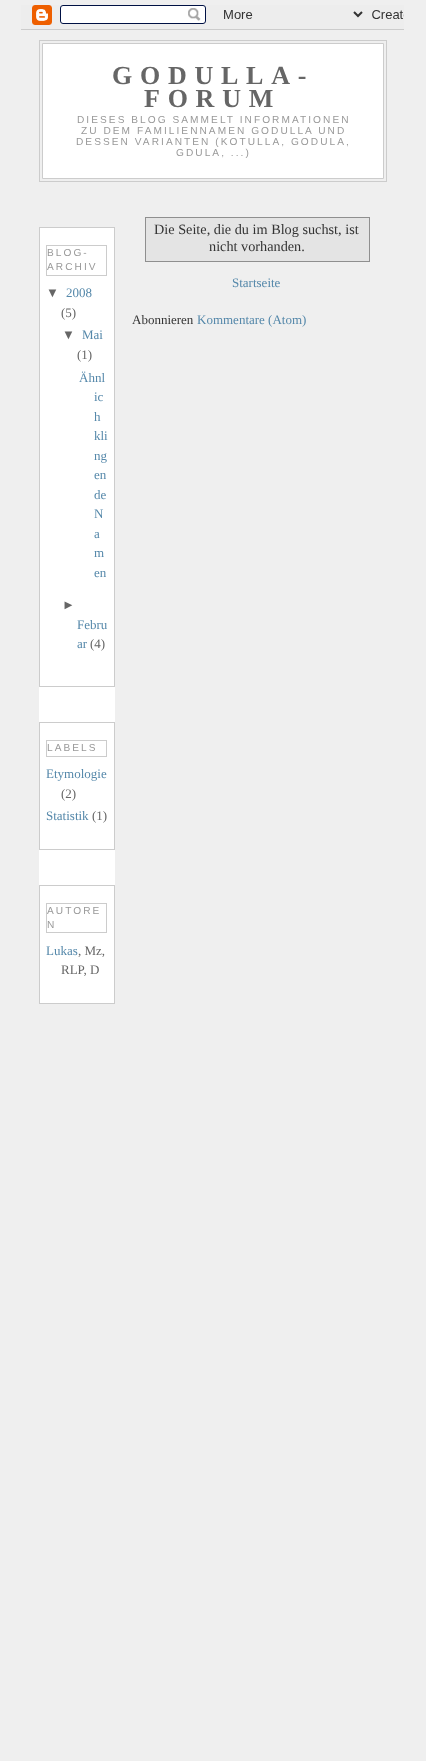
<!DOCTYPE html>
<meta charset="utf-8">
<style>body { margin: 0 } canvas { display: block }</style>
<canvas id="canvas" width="426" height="1761"></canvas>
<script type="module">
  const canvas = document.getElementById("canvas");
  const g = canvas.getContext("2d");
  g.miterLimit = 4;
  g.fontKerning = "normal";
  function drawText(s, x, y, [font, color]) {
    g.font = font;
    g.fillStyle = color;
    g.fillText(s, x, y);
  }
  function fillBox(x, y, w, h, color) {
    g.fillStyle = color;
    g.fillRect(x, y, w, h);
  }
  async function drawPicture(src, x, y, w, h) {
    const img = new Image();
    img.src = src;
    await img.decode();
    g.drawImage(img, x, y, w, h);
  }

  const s1 = ["bold 26px Liberation Serif", "#666666"];
  const s2 = ["10.15px Liberation Sans", "#999999"];
  const s3 = ["13px Liberation Sans", "#666666"];
  const s4 = ["13px Liberation Serif", "#5588AA"];
  const s5 = ["13px Liberation Serif", "#666666"];
  const s6 = ["14.25px Liberation Serif", "#333333"];
  const s7 = ["13px Liberation Serif", "#333333"];

  fillBox(0, 0, 426, 1761, "#EFEFEF");
  await drawPicture("pic1.png", 21, 5, 383, 25);
  g.strokeStyle = "#CCCCCC";
  g.strokeRect(39.5, 40.5, 347, 141);
  g.fillStyle = "#FFFFFF";
  g.beginPath();
  g.rect(42.5, 43.5, 341, 135);
  g.fill();
  g.stroke();
  g.letterSpacing = "7.75px";
  drawText("GODULLA-", 112, 84, s1);
  drawText("FORUM", 144, 107, s1);
  g.letterSpacing = "2.05px";
  drawText("DIESES BLOG SAMMELT INFORMATIONEN", 77, 123, s2);
  drawText("ZU DEM FAMILIENNAMEN GODULLA UND", 81, 134, s2);
  drawText("DESSEN VARIANTEN (KOTULLA, GODULA,", 76, 145, s2);
  drawText("GDULA, ...)", 176, 156, s2);
  fillBox(39, 228, 76, 775, "#FFFFFF");
  g.strokeRect(39.5, 227.5, 75, 459);
  g.strokeRect(46.5, 245.5, 60, 30);
  drawText("BLOG-", 47, 256, s2);
  drawText("ARCHIV", 47, 270, s2);
  g.letterSpacing = "0px";
  drawText("▼", 46, 297, s3);
  drawText("2008", 66, 297, s4);
  drawText("(5)", 61, 317, s5);
  drawText("▼", 62, 339, s3);
  drawText("Mai", 82, 339, s4);
  drawText("(1)", 77, 359, s5);
  drawText("Ähnl", 79, 382, s4);
  drawText("ic", 94, 401, s4);
  drawText("h", 94, 421, s4);
  drawText("kli", 94, 440, s4);
  drawText("ng", 94, 460, s4);
  drawText("en", 94, 479, s4);
  drawText("de", 94, 499, s4);
  drawText("N", 94, 518, s4);
  drawText("a", 94, 538, s4);
  drawText("m", 94, 557, s4);
  drawText("en", 94, 577, s4);
  drawText("►", 62, 609, s3);
  drawText("Febru", 77, 629, s4);
  drawText("ar", 77, 648, s4);
  drawText("(4)", 90, 648, s5);
  g.strokeRect(39.5, 722.5, 75, 127);
  g.strokeRect(46.5, 740.5, 60, 16);
  g.letterSpacing = "2.05px";
  drawText("LABELS", 47, 751, s2);
  g.letterSpacing = "0px";
  drawText("Etymologie", 46, 778, s4);
  drawText("(2)", 61, 798, s5);
  drawText("Statistik", 46, 820, s4);
  drawText("(1)", 92, 820, s5);
  g.strokeRect(39.5, 885.5, 75, 118);
  g.strokeRect(46.5, 903.5, 60, 29);
  g.letterSpacing = "2.05px";
  drawText("AUTORE", 47, 914, s2);
  drawText("N", 47, 928, s2);
  g.letterSpacing = "0px";
  drawText("Lukas", 46, 955, s4);
  drawText(", Mz,", 78, 955, s5);
  drawText("RLP, D", 61, 974, s5);
  g.strokeStyle = "#8F8F8F";
  g.strokeRect(145.5, 217.5, 224, 44);
  fillBox(146, 218, 223, 43, "#E4E4E4");
  drawText("Die Seite, die du im Blog suchst, ist", 154, 234, s6);
  drawText("nicht vorhanden.", 209, 251, s6);
  drawText("Startseite", 232, 287, s4);
  drawText("Abonnieren", 132, 324, s7);
  drawText("Kommentare (Atom)", 197, 324, s4);
</script>
